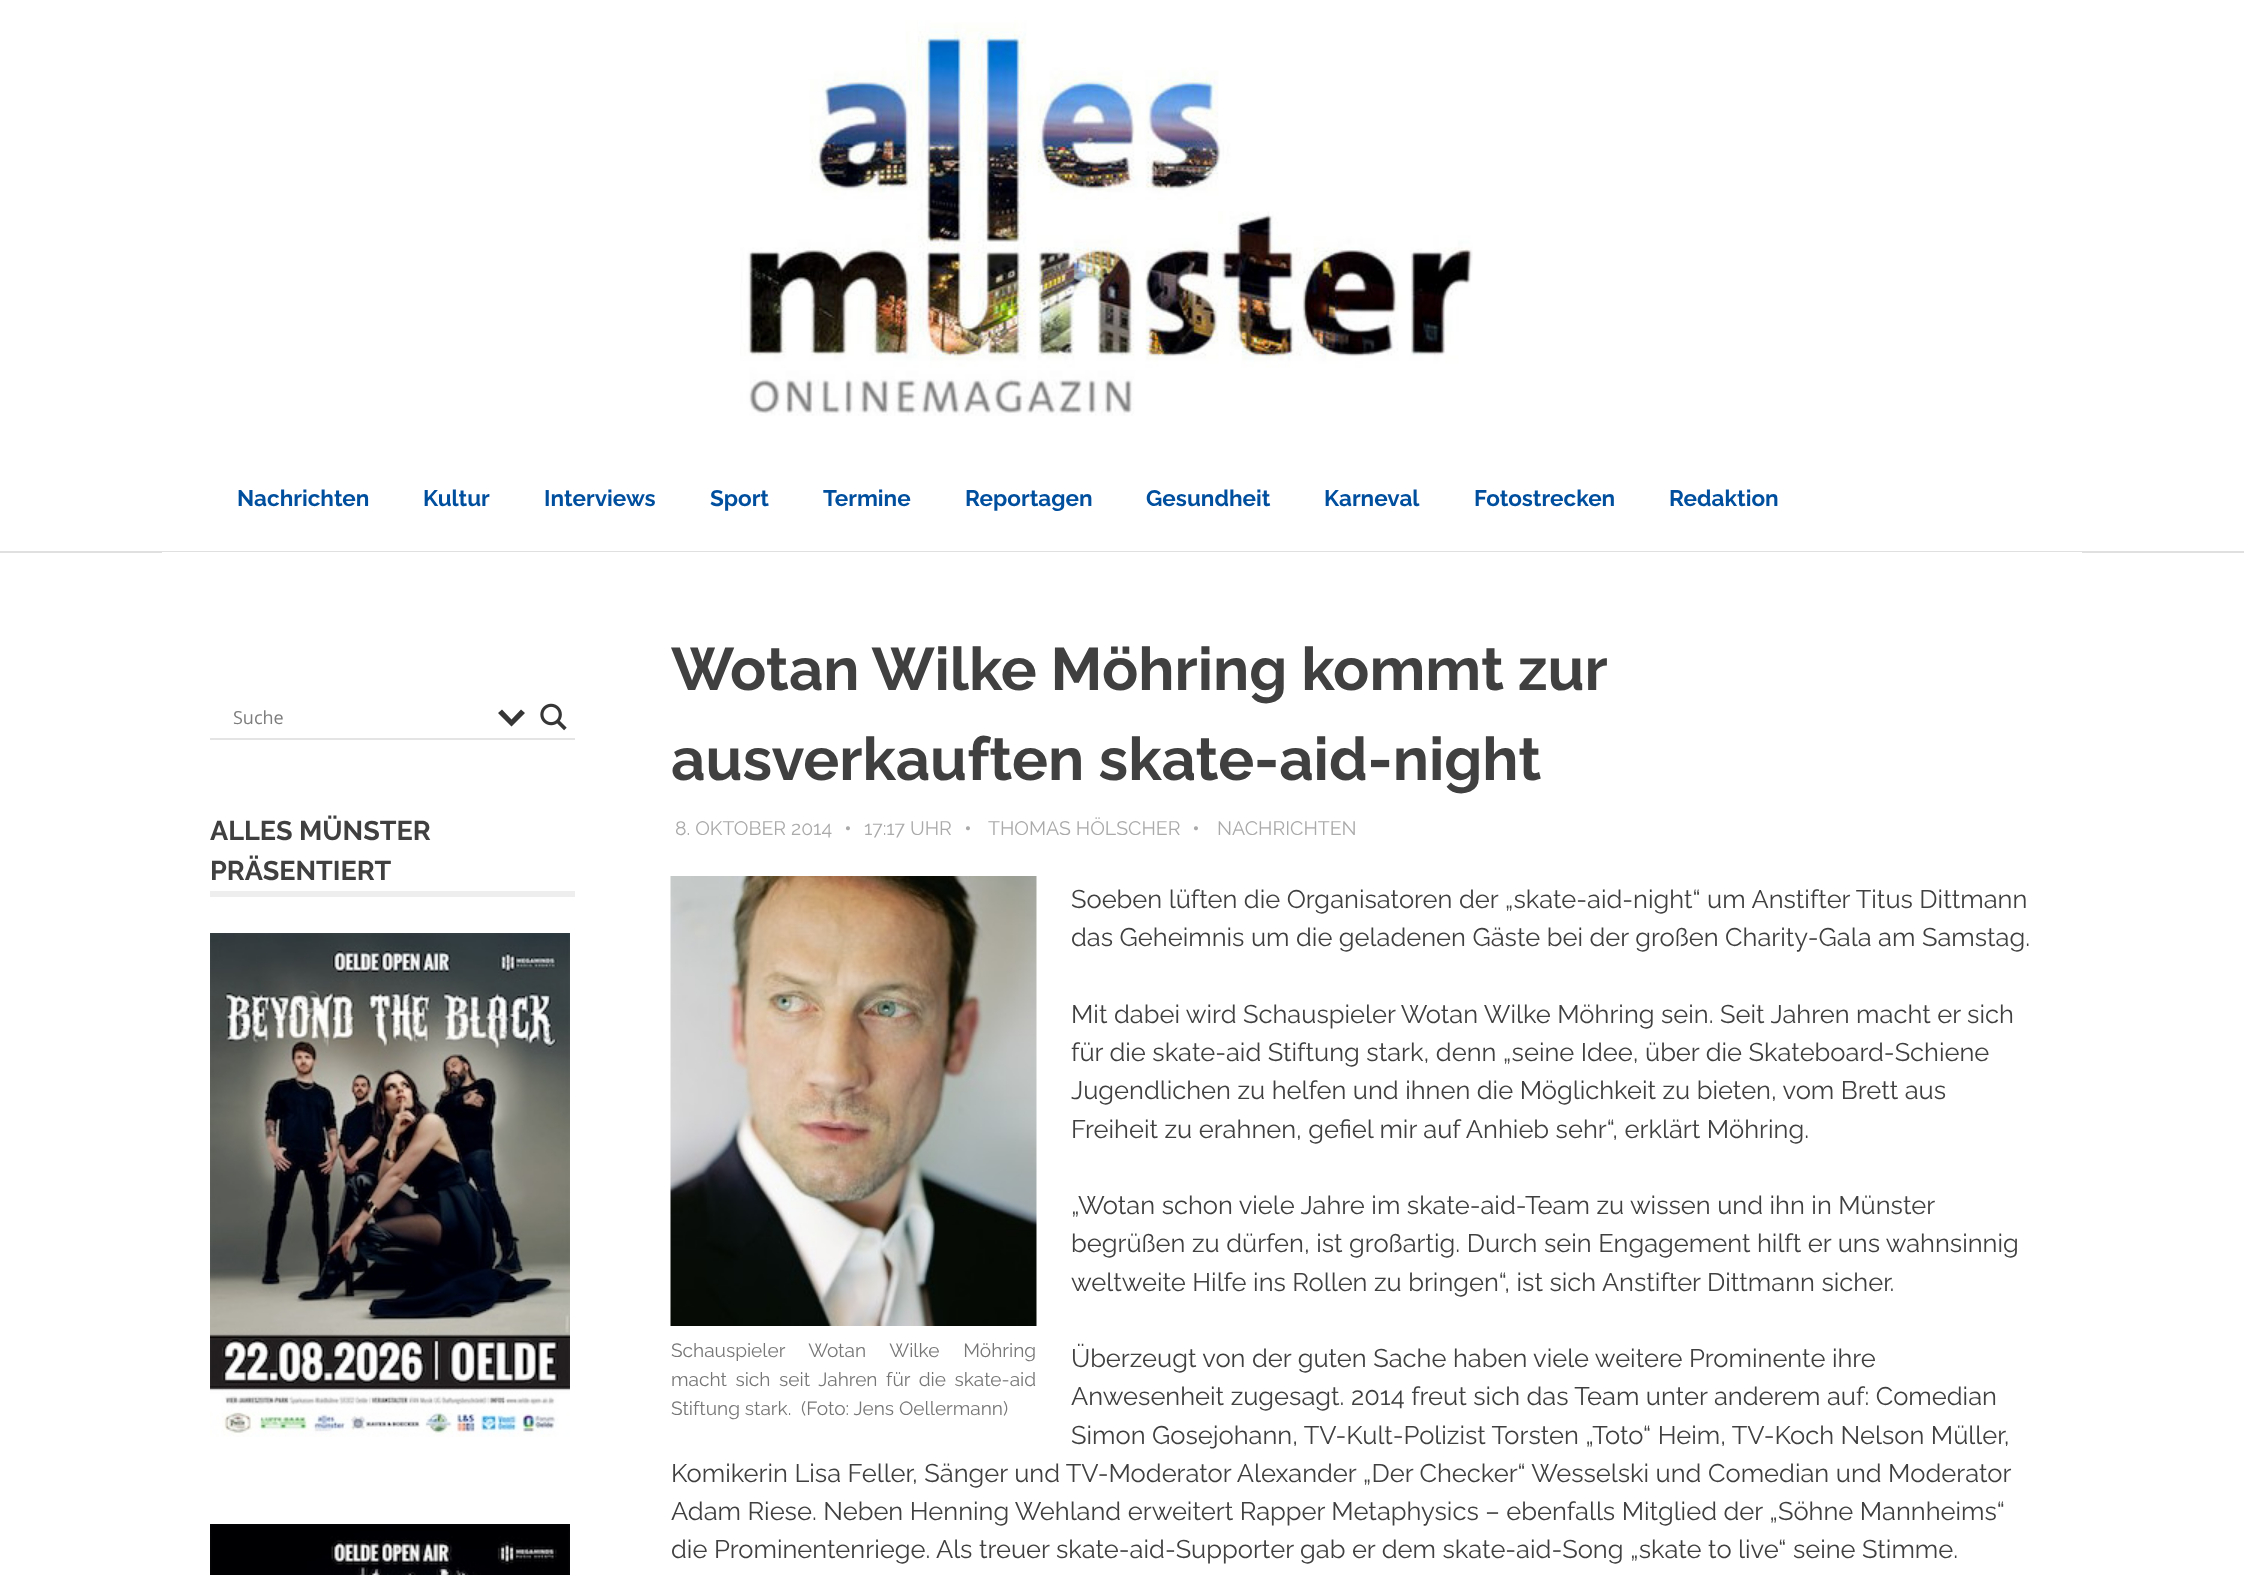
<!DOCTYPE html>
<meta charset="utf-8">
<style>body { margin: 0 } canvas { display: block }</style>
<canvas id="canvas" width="2244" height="1575"></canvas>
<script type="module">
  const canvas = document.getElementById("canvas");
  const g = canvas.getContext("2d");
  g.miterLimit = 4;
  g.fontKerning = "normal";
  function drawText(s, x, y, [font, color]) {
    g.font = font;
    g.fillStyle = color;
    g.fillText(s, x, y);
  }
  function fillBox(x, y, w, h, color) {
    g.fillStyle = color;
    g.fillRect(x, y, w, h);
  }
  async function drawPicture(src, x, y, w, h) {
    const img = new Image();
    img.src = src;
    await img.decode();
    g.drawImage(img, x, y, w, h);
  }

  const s1 = ["100 22.5px 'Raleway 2'", "#004F9F"];
  const s2 = ["18px Open Sans", "#7D7D7D"];
  const s3 = ["100 27px 'Raleway 2'", "#404040"];
  const s4 = ["100 60px 'Raleway 2'", "#404040"];
  const s5 = ["100 19.5px Raleway", "#AAAAAA"];
  const s6 = ["100 22.5px Raleway", "#AAAAAA"];
  const s7 = ["100 25.5px Raleway", "#404040"];
  const s8 = ["100 19.1px Raleway", "#777777"];

  fillBox(0, 0, 2244, 1575, "#FFFFFF");
  fillBox(0, 551, 2244, 2, "#E0E0E0");
  await drawPicture("pic1.png", 740, 20, 733, 396);
  drawText("Nachrichten", 237, 506, s1);
  drawText("Kultur", 423, 506, s1);
  drawText("Interviews", 544, 506, s1);
  drawText("Sport", 710, 506, s1);
  drawText("Termine", 823, 506, s1);
  drawText("Reportagen", 965, 506, s1);
  drawText("Gesundheit", 1146, 506, s1);
  drawText("Karneval", 1324, 506, s1);
  drawText("Fotostrecken", 1474, 506, s1);
  drawText("Redaktion", 1669, 506, s1);
  fillBox(162, 552, 1920, 1, "#FFFFFF");
  g.fillStyle = "#E4E4E4";
  g.beginPath();
  g.moveTo(210, 738);
  g.lineTo(210, 740);
  g.lineTo(575, 740);
  g.lineTo(575, 698);
  g.lineTo(574, 698);
  g.lineTo(574, 738);
  g.closePath();
  g.fill();
  fillBox(574, 698, 1, 40, "#FFFFFF");
  drawText("Suche", 233, 724, s2);
  g.fillStyle = "#363636";
  g.beginPath();
  g.moveTo(521, 709.5);
  g.lineTo(525, 713);
  g.lineTo(511.5, 726.5);
  g.lineTo(498, 713);
  g.lineTo(502, 709.5);
  g.lineTo(511.5, 719.5);
  g.closePath();
  g.fill();
  await drawPicture("pic2.png", 540, 703, 27, 28);
  fillBox(210, 891, 365, 6, "#EEEEEE");
  drawText("ALLES MÜNSTER", 210, 840, s3);
  drawText("PRÄSENTIERT", 210, 880, s3);
  await drawPicture("pic3.png", 210, 933, 360, 504);
  await drawPicture("pic4.png", 210, 1524, 360, 51);
  g.wordSpacing = "-0.5px";
  drawText("Wotan Wilke Möhring kommt zur", 671, 690, s4);
  g.wordSpacing = "0px";
  drawText("ausverkauften skate-aid-night", 671, 780, s4);
  drawText("8. OKTOBER 2014", 675, 835, s5);
  drawText("•", 844, 836, s6);
  drawText("17:17 UHR", 864, 835, s5);
  drawText("•", 964, 836, s6);
  drawText("THOMAS HÖLSCHER", 988, 835, s5);
  drawText("•", 1192, 836, s6);
  drawText("NACHRICHTEN", 1217, 835, s5);
  drawText("Soeben lüften die Organisatoren der „skate-aid-night“ um Anstifter Titus Dittmann", 1071, 908, s7);
  drawText("das Geheimnis um die geladenen Gäste bei der großen Charity-Gala am Samstag.", 1071, 946, s7);
  drawText("Mit dabei wird Schauspieler Wotan Wilke Möhring sein. Seit Jahren macht er sich", 1071, 1023, s7);
  drawText("für die skate-aid Stiftung stark, denn „seine Idee, über die Skateboard-Schiene", 1071, 1061, s7);
  drawText("Jugendlichen zu helfen und ihnen die Möglichkeit zu bieten, vom Brett aus", 1071, 1099, s7);
  drawText("Freiheit zu erahnen, gefiel mir auf Anhieb sehr“, erklärt Möhring.", 1071, 1138, s7);
  drawText("„Wotan schon viele Jahre im skate-aid-Team zu wissen und ihn in Münster", 1071, 1214, s7);
  drawText("begrüßen zu dürfen, ist großartig. Durch sein Engagement hilft er uns wahnsinnig", 1071, 1252, s7);
  drawText("weltweite Hilfe ins Rollen zu bringen“, ist sich Anstifter Dittmann sicher.", 1071, 1291, s7);
  await drawPicture("pic5.png", 670, 876, 367, 450);
  g.wordSpacing = "19px";
  drawText("Schauspieler Wotan Wilke Möhring", 671, 1357, s8);
  g.wordSpacing = "3.75px";
  drawText("macht sich seit Jahren für die skate-aid", 671, 1386, s8);
  g.wordSpacing = "0px";
  drawText("Stiftung stark.  (Foto: Jens Oellermann)", 671, 1415, s8);
  drawText("Überzeugt von der guten Sache haben viele weitere Prominente ihre", 1071, 1367, s7);
  drawText("Anwesenheit zugesagt. 2014 freut sich das Team unter anderem auf: Comedian", 1071, 1405, s7);
  drawText("Simon Gosejohann, TV-Kult-Polizist Torsten „Toto“ Heim, TV-Koch Nelson Müller,", 1071, 1444, s7);
  drawText("Komikerin Lisa Feller, Sänger und TV-Moderator Alexander „Der Checker“ Wesselski und Comedian und Moderator", 671, 1482, s7);
  drawText("Adam Riese. Neben Henning Wehland erweitert Rapper Metaphysics – ebenfalls Mitglied der „Söhne Mannheims“", 671, 1520, s7);
  drawText("die Prominentenriege. Als treuer skate-aid-Supporter gab er dem skate-aid-Song „skate to live“ seine Stimme.", 671, 1558, s7);
</script>
